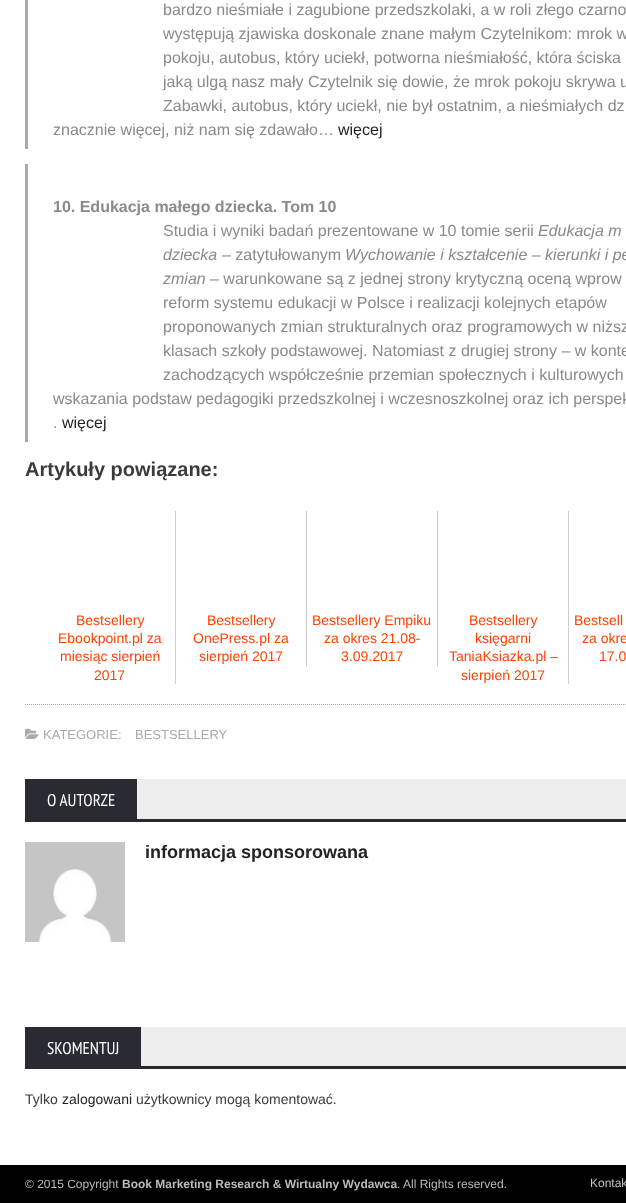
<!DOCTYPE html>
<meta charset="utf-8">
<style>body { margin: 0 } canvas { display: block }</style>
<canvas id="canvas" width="626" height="1203"></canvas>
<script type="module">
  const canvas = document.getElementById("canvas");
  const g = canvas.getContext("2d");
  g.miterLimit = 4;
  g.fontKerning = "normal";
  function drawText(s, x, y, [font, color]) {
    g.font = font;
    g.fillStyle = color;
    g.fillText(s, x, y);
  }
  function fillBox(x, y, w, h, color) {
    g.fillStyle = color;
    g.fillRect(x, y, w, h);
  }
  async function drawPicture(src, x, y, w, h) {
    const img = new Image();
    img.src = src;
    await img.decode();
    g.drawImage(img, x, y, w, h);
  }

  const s1 = ["16px Liberation Sans", "#8A8A8A"];
  const s2 = ["16px Liberation Sans", "#232323"];
  const s3 = ["bold 16px Liberation Sans", "#8A8A8A"];
  const s4 = ["italic 16px Liberation Sans", "#8A8A8A"];
  const s5 = ["bold 20px Liberation Sans", "#3B3B3B"];
  const s6 = ["14px Liberation Sans", "#FF4200"];
  const s7 = ["13px Liberation Sans", "#AAAAAA"];
  const s8 = ["17px PT Sans Narrow", "#FFFFFF"];
  const s9 = ["bold 18px Liberation Sans", "#232323"];
  const s10 = ["14px Liberation Sans", "#3B3B3B"];
  const s11 = ["14px Liberation Sans", "#232323"];
  const s12 = ["12px Liberation Sans", "#BBBBBB"];
  const s13 = ["bold 12px Liberation Sans", "#BBBBBB"];
  const s14 = ["12px Liberation Sans", "#C5C5C5"];

  fillBox(0, 0, 626, 1203, "#FFFFFF");
  fillBox(25, 0, 3, 149, "#AAAAAA");
  drawText("bardzo nieśmiałe i zagubione przedszkolaki, a w roli złego czarno", 163, 15, s1);
  drawText("występują zjawiska doskonale znane małym Czytelnikom: mrok w", 163, 39, s1);
  drawText("pokoju, autobus, który uciekł, potworna nieśmiałość, która ściska", 163, 63, s1);
  drawText("jaką ulgą nasz mały Czytelnik się dowie, że mrok pokoju skrywa u", 163, 87, s1);
  drawText("Zabawki, autobus, który uciekł, nie był ostatnim, a nieśmiałych dz", 163, 111, s1);
  drawText("znacznie więcej, niż nam się zdawało…", 53, 135, s1);
  drawText("więcej", 338, 135, s2);
  fillBox(25, 164, 3, 278, "#AAAAAA");
  drawText("10. Edukacja małego dziecka. Tom 10", 53, 212, s3);
  drawText("Studia i wyniki badań prezentowane w 10 tomie serii", 163, 236, s1);
  drawText("Edukacja m", 538, 236, s4);
  drawText("dziecka", 163, 260, s4);
  drawText("– zatytułowanym", 222, 260, s1);
  drawText("Wychowanie i kształcenie – kierunki i pe", 345, 260, s4);
  drawText("zmian", 163, 284, s4);
  drawText("– warunkowane są z jednej strony krytyczną oceną wprow", 210, 284, s1);
  drawText("reform systemu edukacji w Polsce i realizacji kolejnych etapów", 163, 308, s1);
  drawText("proponowanych zmian strukturalnych oraz programowych w niższ", 163, 332, s1);
  drawText("klasach szkoły podstawowej. Natomiast z drugiej strony – w konte", 163, 356, s1);
  drawText("zachodzących współcześnie przemian społecznych i kulturowych", 163, 380, s1);
  drawText("wskazania podstaw pedagogiki przedszkolnej i wczesnoszkolnej oraz ich perspek", 53, 404, s1);
  drawText(".", 53, 428, s1);
  drawText("więcej", 62, 428, s2);
  drawText("Artykuły powiązane:", 25, 476, s5);
  fillBox(175, 511, 1, 173, "#CCCCCC");
  drawText("Bestsellery", 76, 625, s6);
  drawText("Ebookpoint.pl za", 58, 643, s6);
  drawText("miesiąc sierpień", 60, 661, s6);
  drawText("2017", 94, 680, s6);
  fillBox(306, 511, 1, 155, "#CCCCCC");
  drawText("Bestsellery", 207, 625, s6);
  drawText("OnePress.pl za", 193, 643, s6);
  drawText("sierpień 2017", 199, 661, s6);
  fillBox(437, 511, 1, 155, "#CCCCCC");
  drawText("Bestsellery Empiku", 312, 625, s6);
  drawText("za okres 21.08-", 324, 643, s6);
  drawText("3.09.2017", 341, 661, s6);
  fillBox(568, 511, 1, 173, "#CCCCCC");
  drawText("Bestsellery", 469, 625, s6);
  drawText("księgarni", 475, 643, s6);
  drawText("TaniaKsiazka.pl –", 449, 661, s6);
  drawText("sierpień 2017", 461, 680, s6);
  drawText("Bestsell", 574, 625, s6);
  drawText("za okre", 582, 643, s6);
  drawText("17.0", 599, 661, s6);
  g.beginPath();
  g.moveTo(25, 704.5);
  g.lineTo(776, 704.5);
  g.strokeStyle = "#AAAAAA";
  g.setLineDash([1, 1]);
  g.stroke();
  await drawPicture("pic1.png", 25, 728, 14, 11);
  drawText("KATEGORIE:", 43, 739, s7);
  drawText("BESTSELLERY", 135, 739, s7);
  fillBox(137, 779, 489, 40, "#EDEDED");
  fillBox(25, 779, 112, 40, "#292A32");
  drawText("O AUTORZE", 47, 806, s8);
  fillBox(25, 819, 601, 3, "#292A32");
  await drawPicture("pic2.png", 25, 842, 100, 100);
  drawText("informacja sponsorowana", 145, 858, s9);
  fillBox(141, 1027, 485, 39, "#EDEDED");
  fillBox(25, 1027, 116, 39, "#292A32");
  drawText("SKOMENTUJ", 47, 1054, s8);
  fillBox(25, 1066, 601, 3, "#292A32");
  drawText("Tylko", 25, 1104, s10);
  drawText("zalogowani", 62, 1104, s11);
  drawText("użytkownicy mogą komentować.", 136, 1104, s10);
  fillBox(0, 1165, 626, 38, "#000000");
  drawText("© 2015 Copyright", 25, 1188, s12);
  drawText("Book Marketing Research & Wirtualny Wydawca", 122, 1188, s13);
  drawText(". All Rights reserved.", 397, 1188, s12);
  drawText("Kontak", 590, 1187, s14);
</script>
